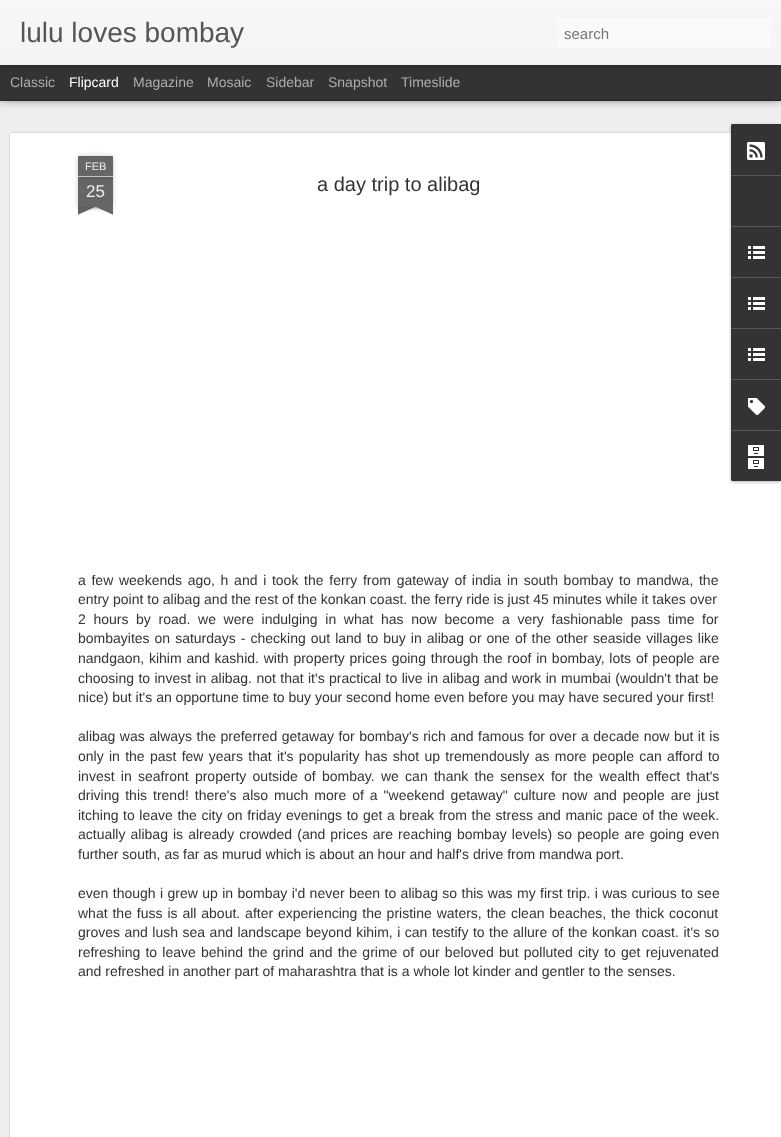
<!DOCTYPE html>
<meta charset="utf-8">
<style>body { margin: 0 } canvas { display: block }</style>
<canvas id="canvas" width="781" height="1137"></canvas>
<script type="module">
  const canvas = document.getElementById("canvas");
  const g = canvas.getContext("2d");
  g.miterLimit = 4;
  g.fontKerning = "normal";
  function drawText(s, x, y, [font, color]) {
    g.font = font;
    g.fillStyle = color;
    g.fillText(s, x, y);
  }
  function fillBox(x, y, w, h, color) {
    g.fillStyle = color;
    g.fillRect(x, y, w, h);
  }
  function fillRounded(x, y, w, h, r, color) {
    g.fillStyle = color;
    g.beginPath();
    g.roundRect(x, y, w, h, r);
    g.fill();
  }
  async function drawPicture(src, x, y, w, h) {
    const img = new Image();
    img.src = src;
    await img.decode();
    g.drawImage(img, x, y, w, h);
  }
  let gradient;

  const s1 = ["28px Liberation Sans", "#555555"];
  const s2 = ["15px Liberation Sans", "#757575"];
  const s3 = ["14px Liberation Sans", "#ADADAD"];
  const s4 = ["14px Liberation Sans", "#FFFFFF"];
  const s5 = ["11px Liberation Sans", "#EEEEEE"];
  const s6 = ["17px Liberation Sans", "#EEEEEE"];
  const s7 = ["20px Liberation Sans", "#333333"];
  const s8 = ["14px Liberation Sans", "#333333"];

  fillBox(0, 0, 781, 1137, "#333333");
  fillBox(0, 101, 781, 1036, "#EEEEEE");
  g.fillStyle = "rgba(0, 0, 0, 0.5)";
  g.filter = "blur(4px)";
  g.beginPath();
  g.rect(0, 65, 781, 35);
  g.fill();
  g.filter = "none";
  fillBox(0, 65, 781, 35, "#333333");
  g.fillStyle = "rgba(0, 0, 0, 0.3)";
  g.filter = "blur(2.5px)";
  g.beginPath();
  g.rect(0, 0, 781, 65);
  g.fill();
  g.filter = "none";
  gradient = g.createLinearGradient(0, 0, 0, 65);
  gradient.addColorStop(0, "#F7F7F7");
  gradient.addColorStop(1, "#F4F4F4");
  g.fillStyle = gradient;
  g.fillRect(0, 0, 781, 65);
  drawText("lulu loves bombay", 20, 42, s1);
  fillRounded(557, 18, 214, 30, 3, "#FAFAFA");
  drawText("search", 564, 39, s2);
  drawText("Classic", 10, 87, s3);
  drawText("Flipcard", 69, 87, s4);
  drawText("Magazine", 133, 87, s3);
  drawText("Mosaic", 207, 87, s3);
  drawText("Sidebar", 266, 87, s3);
  drawText("Snapshot", 328, 87, s3);
  drawText("Timeslide", 401, 87, s3);
  fillBox(8, 131, 773, 1006, "#FFFFFF");
  await drawPicture("pic1.png", 8, 131, 723, 1006);
  g.fillStyle = "rgba(0, 0, 0, 0.2)";
  g.filter = "blur(2.5px)";
  g.beginPath();
  g.rect(78, 177, 35, 30);
  g.fill();
  g.filter = "none";
  fillBox(78, 177, 35, 30, "#666666");
  g.fillStyle = "rgba(0, 0, 0, 0.2)";
  g.filter = "blur(2.5px)";
  g.beginPath();
  g.roundRect(78, 156, 35, 21, 1);
  g.fill();
  g.filter = "none";
  g.fillStyle = "#666666";
  g.beginPath();
  g.roundRect(78, 156, 35, 21, [1, 1, 0, 0]);
  g.fill();
  fillBox(78, 176, 35, 1, "#C2C2C2");
  drawText("FEB", 85, 170, s5);
  drawText("25", 86, 197, s6);
  g.save();
  g.beginPath();
  g.rect(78, 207, 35, 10);
  g.clip();
  g.fillStyle = "rgba(0, 0, 0, 0.2)";
  g.filter = "blur(2.5px)";
  g.beginPath();
  g.rect(69, 197, 50, 10);
  g.fill();
  g.filter = "none";
  g.restore();
  g.save();
  g.beginPath();
  g.rect(78, 207, 35, 10);
  g.clip();
  g.fillStyle = "#666666";
  g.beginPath();
  g.moveTo(69, 208);
  g.lineTo(115, 187);
  g.lineTo(119, 196);
  g.lineTo(73, 217);
  g.closePath();
  g.fill();
  g.restore();
  g.save();
  g.beginPath();
  g.rect(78, 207, 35, 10);
  g.clip();
  g.fillStyle = "rgba(0, 0, 0, 0.2)";
  g.filter = "blur(2.5px)";
  g.beginPath();
  g.rect(72, 197, 50, 10);
  g.fill();
  g.filter = "none";
  g.restore();
  g.save();
  g.beginPath();
  g.rect(78, 207, 35, 10);
  g.clip();
  g.fillStyle = "#666666";
  g.beginPath();
  g.moveTo(76, 187);
  g.lineTo(122, 208);
  g.lineTo(118, 217);
  g.lineTo(72, 196);
  g.closePath();
  g.fill();
  g.restore();
  drawText("a day trip to alibag", 317, 191, s7);
  g.wordSpacing = "1.8px";
  drawText("a few weekends ago, h and i took the ferry from gateway of india in south bombay to mandwa, the", 78, 585, s8);
  g.wordSpacing = "0px";
  drawText("entry point to alibag and the rest of the konkan coast. the ferry ride is just 45 minutes while it takes over", 78, 604, s8);
  g.wordSpacing = "3.75px";
  drawText("2 hours by road. we were indulging in what has now become a very fashionable pass time for", 78, 624, s8);
  g.wordSpacing = "1.1px";
  drawText("bombayites on saturdays - checking out land to buy in alibag or one of the other seaside villages like", 78, 643, s8);
  g.wordSpacing = "0.9px";
  drawText("nandgaon, kihim and kashid. with property prices going through the roof in bombay, lots of people are", 78, 663, s8);
  g.wordSpacing = "0.5px";
  drawText("choosing to invest in alibag. not that it's practical to live in alibag and work in mumbai (wouldn't that be", 78, 683, s8);
  g.wordSpacing = "0px";
  drawText("nice) but it's an opportune time to buy your second home even before you may have secured your first!", 78, 702, s8);
  g.wordSpacing = "0.6px";
  drawText("alibag was always the preferred getaway for bombay's rich and famous for over a decade now but it is", 78, 741, s8);
  g.wordSpacing = "1.4px";
  drawText("only in the past few years that it's popularity has shot up tremendously as more people can afford to", 78, 761, s8);
  g.wordSpacing = "2.4px";
  drawText("invest in seafront property outside of bombay. we can thank the sensex for the wealth effect that's", 78, 781, s8);
  g.wordSpacing = "2.1px";
  drawText("driving this trend! there's also much more of a \"weekend getaway\" culture now and people are just", 78, 800, s8);
  g.wordSpacing = "0.7px";
  drawText("itching to leave the city on friday evenings to get a break from the stress and manic pace of the week.", 78, 820, s8);
  g.wordSpacing = "1.2px";
  drawText("actually alibag is already crowded (and prices are reaching bombay levels) so people are going even", 78, 839, s8);
  g.wordSpacing = "0px";
  drawText("further south, as far as murud which is about an hour and half's drive from mandwa port.", 78, 859, s8);
  g.wordSpacing = "0.5px";
  drawText("even though i grew up in bombay i'd never been to alibag so this was my first trip. i was curious to see", 78, 898, s8);
  g.wordSpacing = "1px";
  drawText("what the fuss is all about. after experiencing the pristine waters, the clean beaches, the thick coconut", 78, 918, s8);
  g.wordSpacing = "0.6px";
  drawText("groves and lush sea and landscape beyond kihim, i can testify to the allure of the konkan coast. it's so", 78, 937, s8);
  g.wordSpacing = "1.3px";
  drawText("refreshing to leave behind the grind and the grime of our beloved but polluted city to get rejuvenated", 78, 957, s8);
  g.wordSpacing = "0px";
  drawText("and refreshed in another part of maharashtra that is a whole lot kinder and gentler to the senses.", 78, 976, s8);
  g.fillStyle = "rgba(0, 0, 0, 0.3)";
  g.filter = "blur(1.5px)";
  g.beginPath();
  g.roundRect(731, 125, 50, 357, 2);
  g.fill();
  g.filter = "none";
  g.fillStyle = "#333333";
  g.beginPath();
  g.roundRect(731, 124, 50, 357, [2, 0, 0, 2]);
  g.fill();
  g.beginPath();
  g.roundRect(731, 124, 50, 51, [2, 0, 0, 0]);
  g.fill();
  await drawPicture("pic2.png", 747, 142, 18, 18);
  fillBox(731, 175, 50, 1, "#585858");
  fillBox(731, 226, 50, 1, "#585858");
  await drawPicture("pic3.png", 748, 246, 17, 13);
  fillBox(731, 277, 50, 1, "#585858");
  await drawPicture("pic3.png", 748, 297, 17, 13);
  fillBox(731, 328, 50, 1, "#585858");
  await drawPicture("pic3.png", 748, 348, 17, 13);
  fillBox(731, 379, 50, 1, "#585858");
  await drawPicture("pic4.png", 748, 398, 17, 17);
  g.fillStyle = "#333333";
  g.beginPath();
  g.roundRect(731, 430, 50, 51, [0, 0, 0, 2]);
  g.fill();
  fillBox(731, 430, 50, 1, "#585858");
  await drawPicture("pic5.png", 748, 445, 16, 24);
</script>
